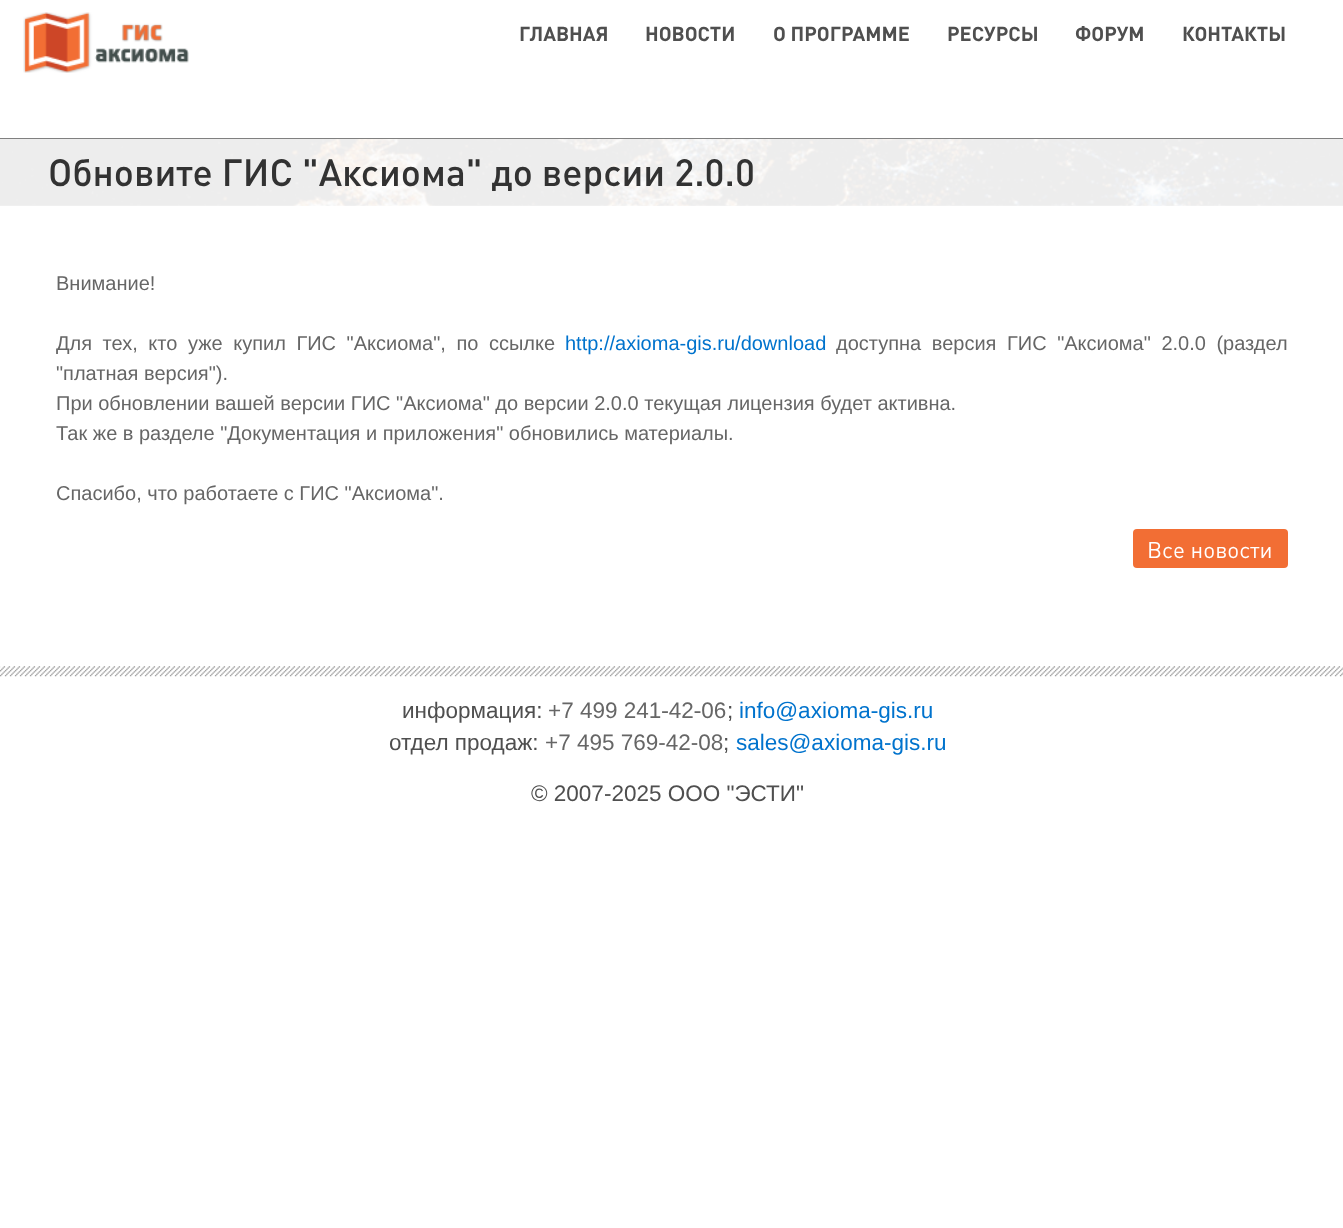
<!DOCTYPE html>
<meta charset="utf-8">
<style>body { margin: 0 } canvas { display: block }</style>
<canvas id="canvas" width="1343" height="1228"></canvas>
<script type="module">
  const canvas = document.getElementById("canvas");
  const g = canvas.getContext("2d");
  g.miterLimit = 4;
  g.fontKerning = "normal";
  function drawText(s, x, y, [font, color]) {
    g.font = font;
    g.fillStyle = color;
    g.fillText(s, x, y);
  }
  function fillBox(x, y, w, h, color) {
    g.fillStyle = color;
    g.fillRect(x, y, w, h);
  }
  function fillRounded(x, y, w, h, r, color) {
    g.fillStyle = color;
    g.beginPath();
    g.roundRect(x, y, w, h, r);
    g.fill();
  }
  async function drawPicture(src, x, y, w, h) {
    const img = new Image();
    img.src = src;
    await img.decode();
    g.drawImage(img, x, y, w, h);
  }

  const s1 = ["bold 20px DIN", "#4F4F4F"];
  const s2 = ["500 37.5px DIN", "#323232"];
  const s3 = ["20px Liberation Sans", "#666666"];
  const s4 = ["20px Liberation Sans", "#0073CD"];
  const s5 = ["22.5px DIN", "#FFFFFF"];
  const s6 = ["22.5px Liberation Sans", "#4F4F4F"];
  const s7 = ["22.5px Liberation Sans", "#666666"];
  const s8 = ["22.5px Liberation Sans", "#0073CD"];

  fillBox(0, 0, 1343, 1228, "#FFFFFF");
  await drawPicture("pic2.png", 0, 138, 1343, 68);
  g.fillStyle = "#808080";
  g.filter = "blur(0.5px)";
  g.beginPath();
  g.rect(-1, -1, 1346, 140);
  g.fill();
  g.filter = "none";
  fillBox(0, 0, 1343, 138, "#FFFFFF");
  await drawPicture("pic1.png", 23, 12, 166, 61);
  drawText("ГЛАВНАЯ", 519, 41, s1);
  drawText("НОВОСТИ", 645, 41, s1);
  drawText("О ПРОГРАММЕ", 773, 41, s1);
  drawText("РЕСУРСЫ", 947, 41, s1);
  drawText("ФОРУМ", 1075, 41, s1);
  drawText("КОНТАКТЫ", 1182, 41, s1);
  drawText("Обновите ГИС \"Аксиома\" до версии 2.0.0", 48, 186, s2);
  drawText("Внимание!", 56, 290, s3);
  g.wordSpacing = "5px";
  drawText("Для тех, кто уже купил ГИС \"Аксиома\", по ссылке", 56, 350, s3);
  g.wordSpacing = "0px";
  drawText("http://axioma-gis.ru/download", 565, 350, s4);
  g.wordSpacing = "5px";
  drawText("доступна версия ГИС \"Аксиома\" 2.0.0 (раздел", 836, 350, s3);
  g.wordSpacing = "0px";
  drawText("\"платная версия\").", 56, 380, s3);
  drawText("При обновлении вашей версии ГИС \"Аксиома\" до версии 2.0.0 текущая лицензия будет активна.", 56, 410, s3);
  drawText("Так же в разделе \"Документация и приложения\" обновились материалы.", 56, 440, s3);
  drawText("Спасибо, что работаете с ГИС \"Аксиома\".", 56, 500, s3);
  fillRounded(1133, 529, 155, 39, 4, "#F26E34");
  drawText("Все новости", 1147, 558, s5);
  await drawPicture("pic3.png", 0, 666, 1343, 11);
  drawText("информация:", 402, 718, s6);
  drawText("+7 499 241‑42‑06", 548, 718, s7);
  drawText(";", 727, 718, s6);
  drawText("info@axioma‑gis.ru", 739, 718, s8);
  drawText("отдел продаж:", 389, 750, s6);
  drawText("+7 495 769-42-08", 545, 750, s7);
  drawText(";", 723, 750, s6);
  drawText("sales@axioma-gis.ru", 736, 750, s8);
  drawText("© 2007-2025 ООО \"ЭСТИ\"", 531, 801, s6);
</script>
